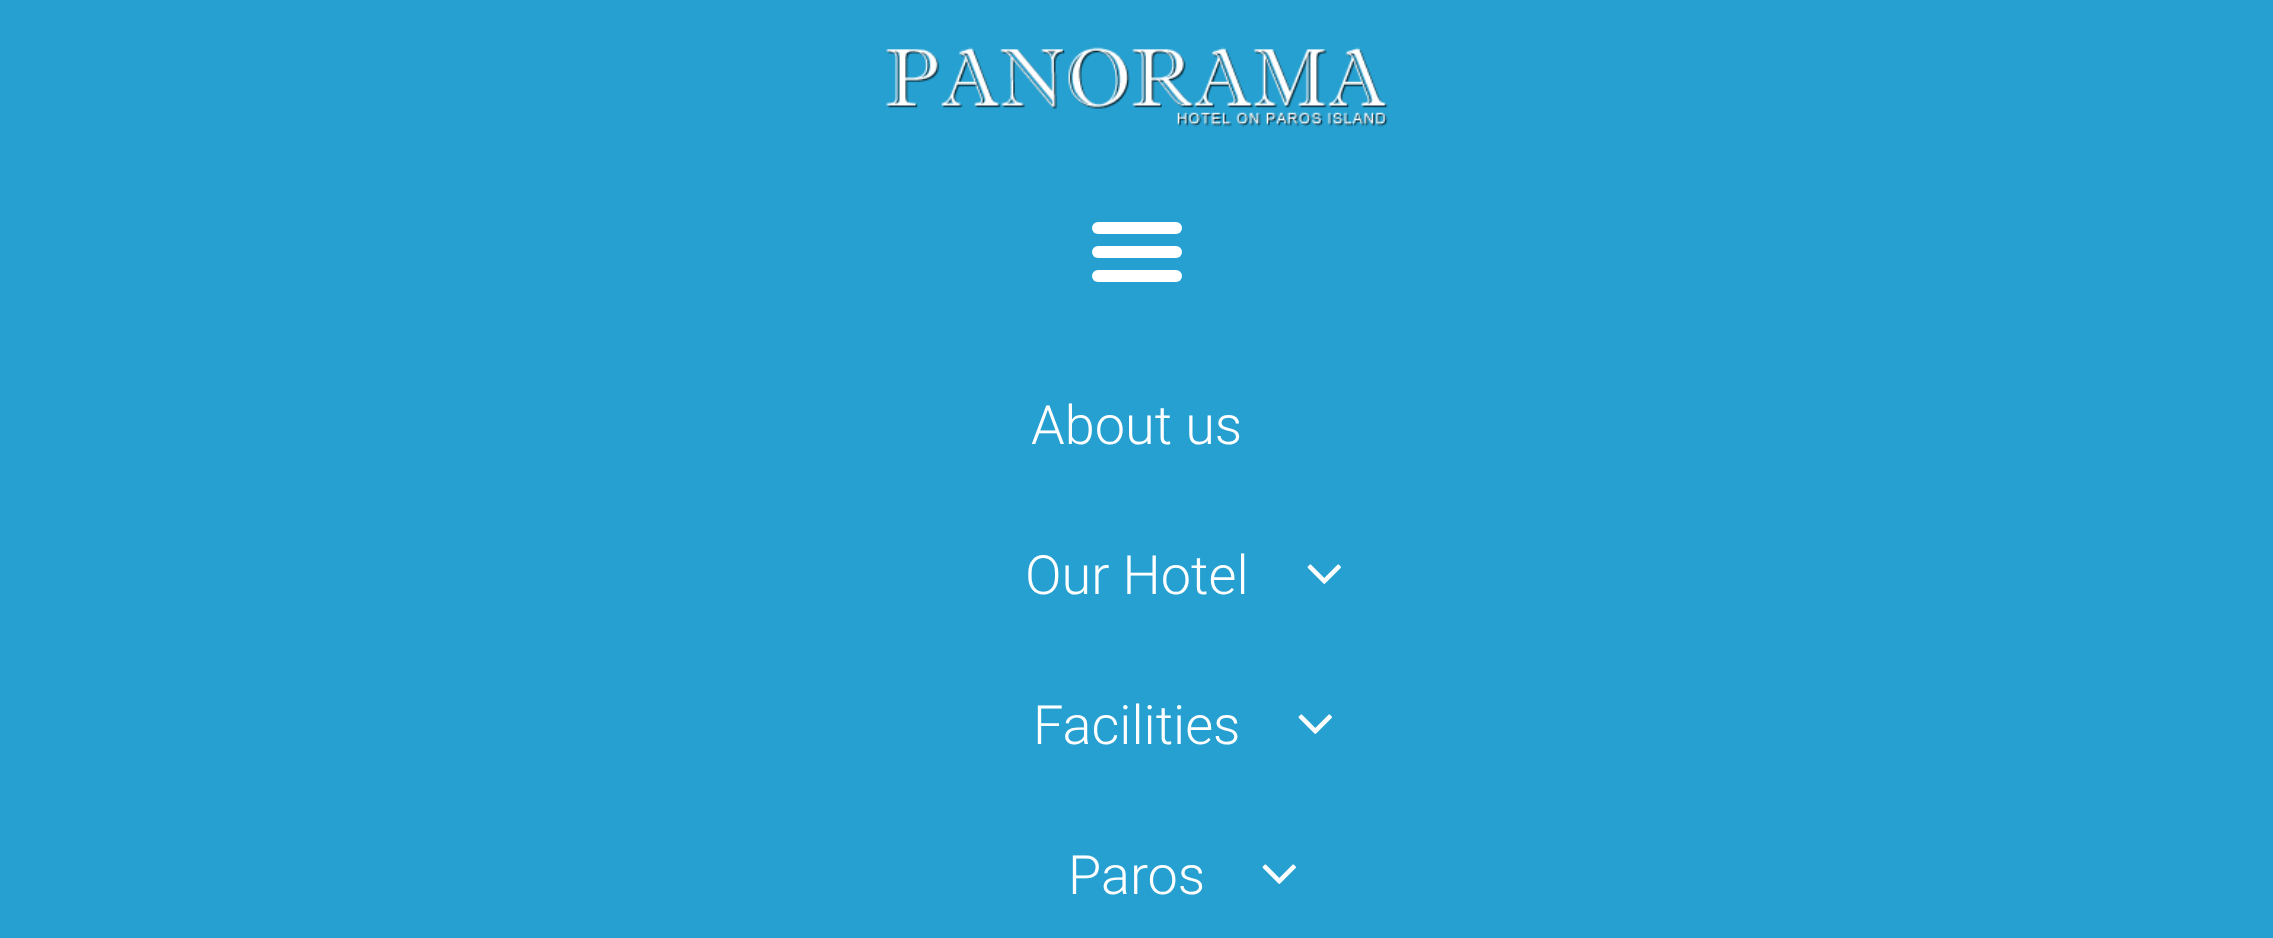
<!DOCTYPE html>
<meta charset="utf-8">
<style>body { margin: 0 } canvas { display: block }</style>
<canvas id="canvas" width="2273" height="938"></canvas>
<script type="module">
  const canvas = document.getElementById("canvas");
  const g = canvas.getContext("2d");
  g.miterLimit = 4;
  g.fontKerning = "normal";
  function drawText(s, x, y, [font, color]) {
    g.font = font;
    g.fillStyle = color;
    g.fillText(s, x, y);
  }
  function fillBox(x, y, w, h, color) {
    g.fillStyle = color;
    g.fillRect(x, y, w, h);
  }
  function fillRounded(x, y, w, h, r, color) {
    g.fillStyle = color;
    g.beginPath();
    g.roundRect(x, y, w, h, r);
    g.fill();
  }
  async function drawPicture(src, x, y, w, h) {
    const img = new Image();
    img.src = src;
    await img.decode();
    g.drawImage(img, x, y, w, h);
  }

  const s1 = ["300 54px Roboto", "#FFFFFF"];

  fillBox(0, 0, 2273, 938, "#25A0D1");
  await drawPicture("pic1.png", 886, 47, 502, 80);
  fillRounded(1092, 222, 90, 12, 6, "#FFFFFF");
  fillRounded(1092, 246, 90, 12, 6, "#FFFFFF");
  fillRounded(1092, 270, 90, 12, 6, "#FFFFFF");
  drawText("About us", 1031, 444, s1);
  drawText("Our Hotel", 1025, 594, s1);
  await drawPicture("pic2.png", 1307, 564, 34, 20);
  drawText("Facilities", 1033, 744, s1);
  await drawPicture("pic2.png", 1298, 714, 34, 20);
  drawText("Paros", 1068, 894, s1);
  await drawPicture("pic2.png", 1262, 864, 34, 20);
</script>
